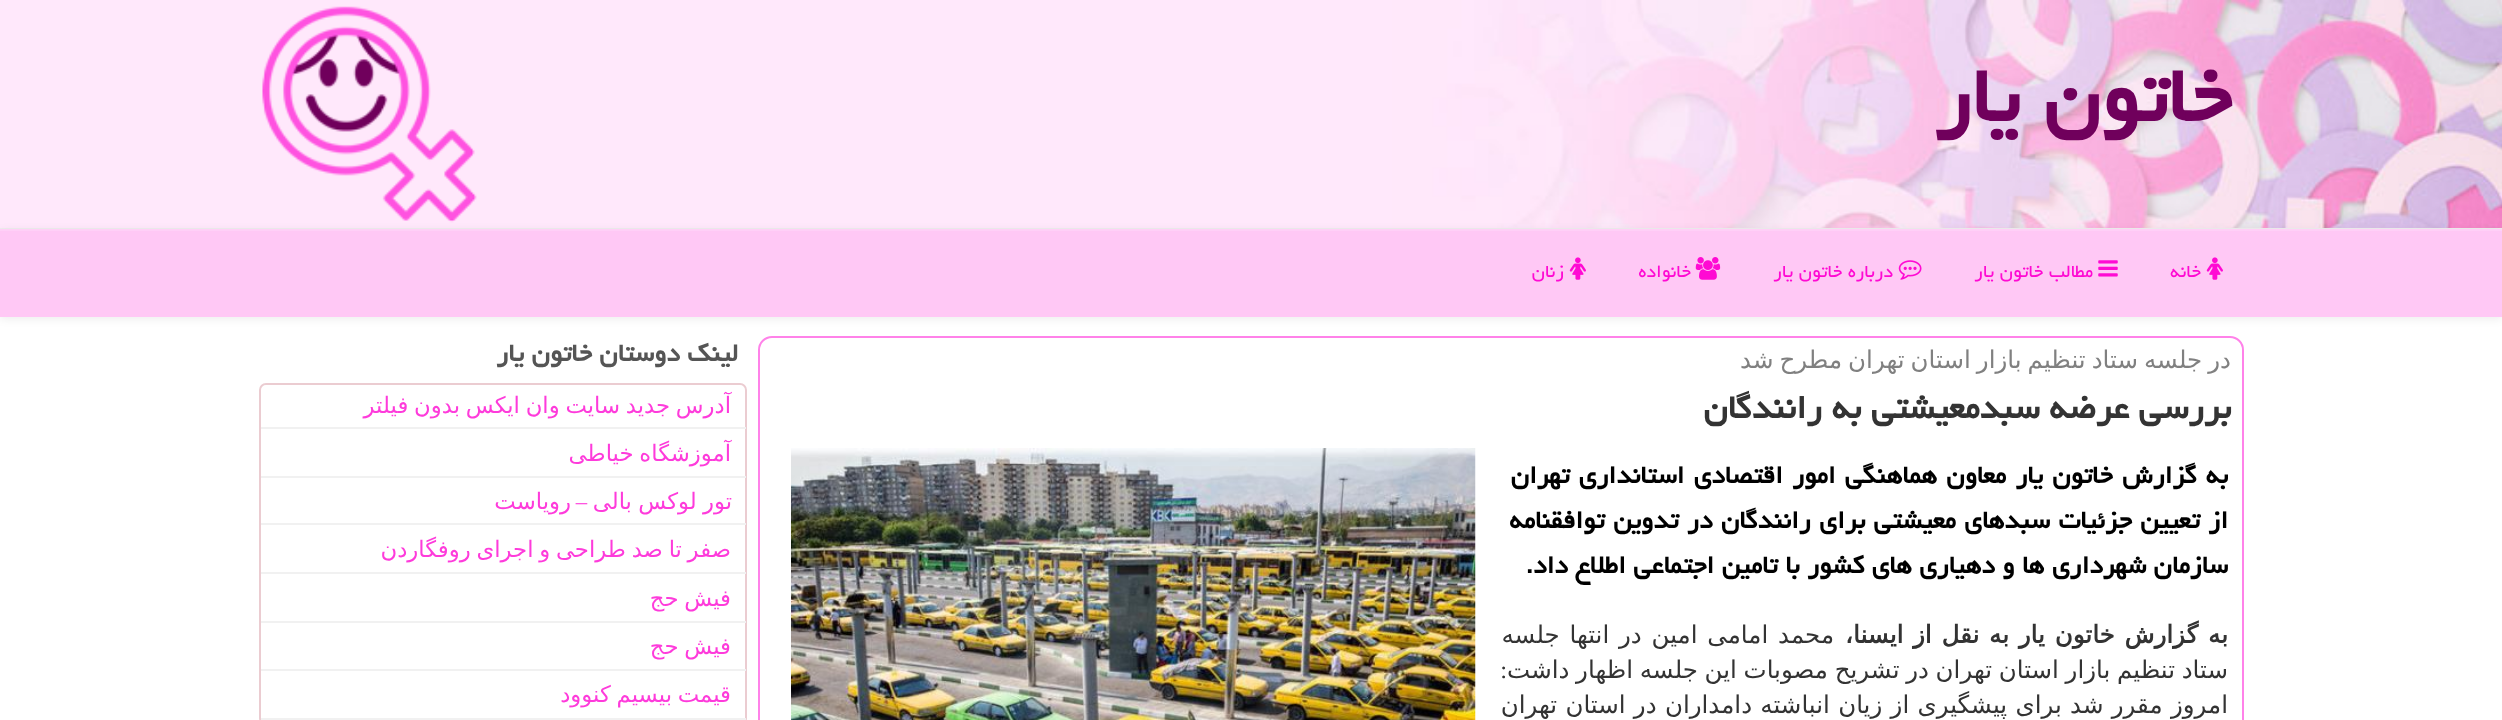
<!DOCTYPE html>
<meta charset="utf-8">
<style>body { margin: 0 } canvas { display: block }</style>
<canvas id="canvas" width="2502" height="720"></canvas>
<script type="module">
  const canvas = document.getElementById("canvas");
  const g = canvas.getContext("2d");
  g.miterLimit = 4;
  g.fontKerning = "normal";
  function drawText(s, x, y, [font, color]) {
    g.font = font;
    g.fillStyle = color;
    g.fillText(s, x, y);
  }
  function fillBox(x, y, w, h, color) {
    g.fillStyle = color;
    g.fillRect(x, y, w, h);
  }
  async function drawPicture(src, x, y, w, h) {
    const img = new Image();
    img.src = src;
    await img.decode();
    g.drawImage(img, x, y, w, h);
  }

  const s1 = ["bold 98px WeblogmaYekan", "#70005C"];
  const s2 = ["22.75px WeblogmaYekan", "#FF0AD3"];
  const s3 = ["24.5px DejaVu Sans", "#808080"];
  const s4 = ["bold 41.6px WeblogmaYekan", "#333333"];
  const s5 = ["bold 31.5px WeblogmaYekan", "#000000"];
  const s6 = ["bold 24.5px DejaVu Sans", "#333333"];
  const s7 = ["24.5px DejaVu Sans", "#333333"];
  const s8 = ["24.5px Liberation Serif", "#333333"];
  const s9 = ["bold 31.5px WeblogmaYekan", "#555555"];
  const s10 = ["22.75px DejaVu Sans", "#FE3BDB"];
  const s11 = ["22.75px Liberation Serif", "#FE3BDB"];

  fillBox(0, 0, 2502, 720, "#FFFFFF");
  fillBox(0, 0, 1392, 228, "#FFE8FB");
  await drawPicture("pic1.png", 1392, 0, 1110, 228);
  fillBox(0, 228, 2502, 1, "#EEEEEE");
  g.direction = "rtl";
  drawText("خاتون یار", 2231, 121, s1);
  await drawPicture("pic2.png", 262, 6, 215, 217);
  g.fillStyle = "rgba(0, 0, 0, 0.07)";
  g.filter = "blur(4.5px)";
  g.beginPath();
  g.rect(0, 231, 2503, 88);
  g.fill();
  g.filter = "none";
  fillBox(0, 231, 2502, 86, "#FFC8F5");
  fillBox(0, 229, 2502, 2, "#FFD0F7");
  await drawPicture("pic3.png", 2206, 257, 17, 23);
  drawText("خانه", 2201, 277, s2);
  await drawPicture("pic4.png", 2098, 260, 20, 17);
  drawText("مطالب خاتون یار", 2093, 277, s2);
  await drawPicture("pic5.png", 1898, 260, 24, 20);
  drawText("درباره خاتون یار", 1893, 277, s2);
  await drawPicture("pic6.png", 1695, 257, 26, 23);
  drawText("خانواده", 1691, 277, s2);
  await drawPicture("pic3.png", 1569, 257, 17, 23);
  drawText("زنان", 1564, 277, s2);
  g.beginPath();
  g.roundRect(759, 337, 1484, 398, 13);
  g.strokeStyle = "#FF82E9";
  g.lineWidth = 2;
  g.stroke();
  g.wordSpacing = "-1.75px";
  drawText("در جلسه ستاد تنظیم بازار استان تهران مطرح شد", 2231, 368, s3);
  g.wordSpacing = "0px";
  drawText("بررسی عرضه سبدمعیشتی به رانندگان", 2231, 418, s4);
  g.wordSpacing = "1.75px";
  drawText("به گزارش خاتون یار معاون هماهنگی امور اقتصادی استانداری تهران", 2228, 483, s5);
  g.wordSpacing = "1px";
  drawText("از تعیین جزئیات سبدهای معیشتی برای رانندگان در تدوین توافقنامه", 2228, 528, s5);
  g.wordSpacing = "0px";
  drawText("سازمان شهرداری ها و دهیاری های كشور با تامین اجتماعی اطلاع داد.", 2228, 573, s5);
  await drawPicture("pic7.png", 791, 448, 685, 272);
  g.wordSpacing = "2px";
  drawText("به گزارش خاتون یار به نقل از ایسنا،", 2228, 643, s6);
  drawText("محمد امامی امین در انتها جلسه", 1834, 643, s7);
  g.wordSpacing = "-1.1px";
  drawText("ستاد تنظیم بازار استان تهران در تشریح مصوبات این جلسه اظهار داشت", 2228, 678, s7);
  g.wordSpacing = "0px";
  drawText(":", 1507, 678, s8);
  g.wordSpacing = "0.5px";
  drawText("امروز مقرر شد برای پیشگیری از زیان انباشته دامداران در استان تهران", 2228, 713, s7);
  g.wordSpacing = "0px";
  drawText("لینک دوستان خاتون یار", 738, 361, s9);
  g.beginPath();
  g.roundRect(260, 384, 486, 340, 6);
  g.strokeStyle = "#EBCCD1";
  g.stroke();
  fillBox(261, 427, 485, 2, "#F1F1F1");
  g.wordSpacing = "-1.5px";
  drawText("آدرس جدید سایت وان ایکس بدون فیلتر", 731, 413, s10);
  fillBox(261, 476, 485, 2, "#F1F1F1");
  drawText("آموزشگاه خیاطی", 731, 461, s10);
  fillBox(261, 523, 485, 2, "#F1F1F1");
  g.wordSpacing = "-1px";
  drawText("تور لوکس بالی", 732, 509, s10);
  g.wordSpacing = "0px";
  drawText("–", 587, 509, s11);
  drawText("رویاست", 571, 509, s10);
  fillBox(261, 572, 485, 2, "#F1F1F1");
  g.wordSpacing = "-1.5px";
  drawText("صفر تا صد طراحی و اجرای روفگاردن", 731, 557, s10);
  fillBox(261, 621, 485, 2, "#F1F1F1");
  drawText("فیش حج", 731, 606, s10);
  fillBox(261, 669, 485, 2, "#F1F1F1");
  drawText("فیش حج", 731, 654, s10);
  fillBox(261, 718, 485, 2, "#F1F1F1");
  drawText("قیمت بیسیم کنوود", 731, 702, s10);
</script>
